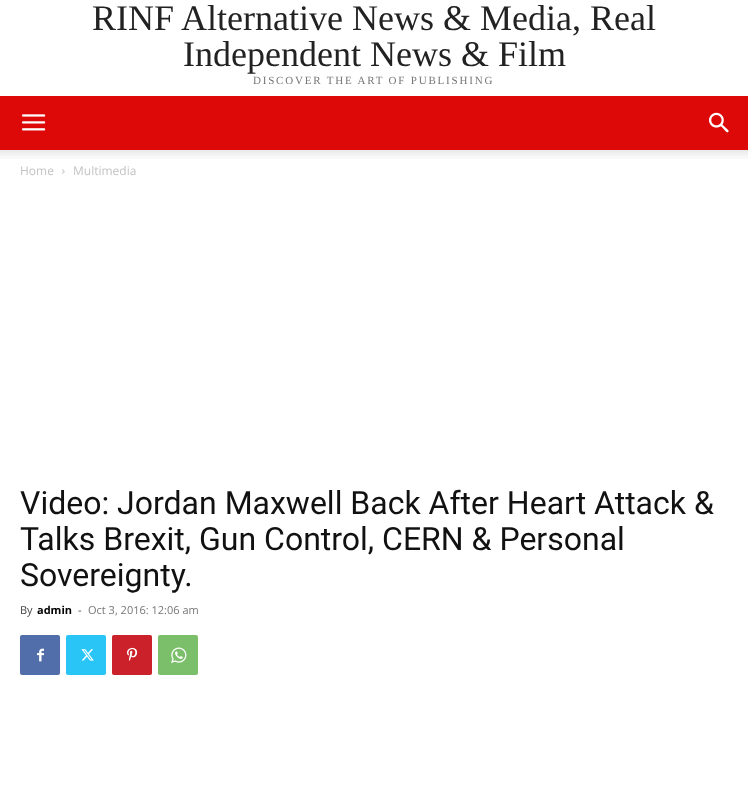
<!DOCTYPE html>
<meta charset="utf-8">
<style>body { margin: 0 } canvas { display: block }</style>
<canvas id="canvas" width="748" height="800"></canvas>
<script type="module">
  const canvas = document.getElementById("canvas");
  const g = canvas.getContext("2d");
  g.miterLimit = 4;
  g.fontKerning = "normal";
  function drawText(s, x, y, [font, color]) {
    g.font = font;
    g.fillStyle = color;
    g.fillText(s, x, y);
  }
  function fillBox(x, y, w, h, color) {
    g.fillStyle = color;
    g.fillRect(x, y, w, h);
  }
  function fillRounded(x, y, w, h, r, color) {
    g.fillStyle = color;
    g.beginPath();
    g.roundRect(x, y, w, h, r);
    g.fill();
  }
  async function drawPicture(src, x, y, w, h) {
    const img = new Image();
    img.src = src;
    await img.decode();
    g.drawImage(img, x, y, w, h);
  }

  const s1 = ["36px Liberation Serif", "#222222"];
  const s2 = ["11px Liberation Serif", "#767676"];
  const s3 = ["12px Open Sans", "#C3C3C3"];
  const s4 = ["32px Roboto", "#111111"];
  const s5 = ["11px Open Sans", "#444444"];
  const s6 = ["bold 11px Open Sans", "#000000"];
  const s7 = ["11px Open Sans", "#767676"];

  fillBox(0, 0, 748, 800, "#FFFFFF");
  drawText("RINF Alternative News & Media, Real", 92, 30, s1);
  drawText("Independent News & Film", 183, 66, s1);
  g.letterSpacing = "1.8px";
  drawText("DISCOVER THE ART OF PUBLISHING", 253, 84, s2);
  fillBox(0, 96, 748, 54, "#DD0808");
  await drawPicture("pic1.png", 22, 114, 24, 17);
  await drawPicture("pic2.png", 709, 112, 20, 21);
  await drawPicture("pic3.png", 0, 150, 748, 9);
  g.letterSpacing = "0px";
  drawText("Home", 20, 175, s3);
  await drawPicture("pic4.png", 62, 169, 3, 5);
  drawText("Multimedia", 73, 175, s3);
  drawText("Video: Jordan Maxwell Back After Heart Attack &", 20, 514, s4);
  drawText("Talks Brexit, Gun Control, CERN & Personal", 20, 550, s4);
  drawText("Sovereignty.", 20, 586, s4);
  drawText("By", 20, 614, s5);
  drawText("admin", 37, 614, s6);
  drawText("-", 78, 614, s5);
  drawText("Oct 3, 2016: 12:06 am", 88, 614, s7);
  fillRounded(20, 635, 40, 40, 2, "#516EAB");
  await drawPicture("pic5.png", 37, 648, 7, 14);
  fillRounded(66, 635, 40, 40, 2, "#29C5F6");
  await drawPicture("pic6.png", 81, 649, 13, 12);
  fillRounded(112, 635, 40, 40, 2, "#CA212A");
  await drawPicture("pic7.png", 127, 647, 11, 14);
  fillRounded(158, 635, 40, 40, 2, "#7BBF6A");
  await drawPicture("pic8.png", 171, 647, 16, 16);
</script>
